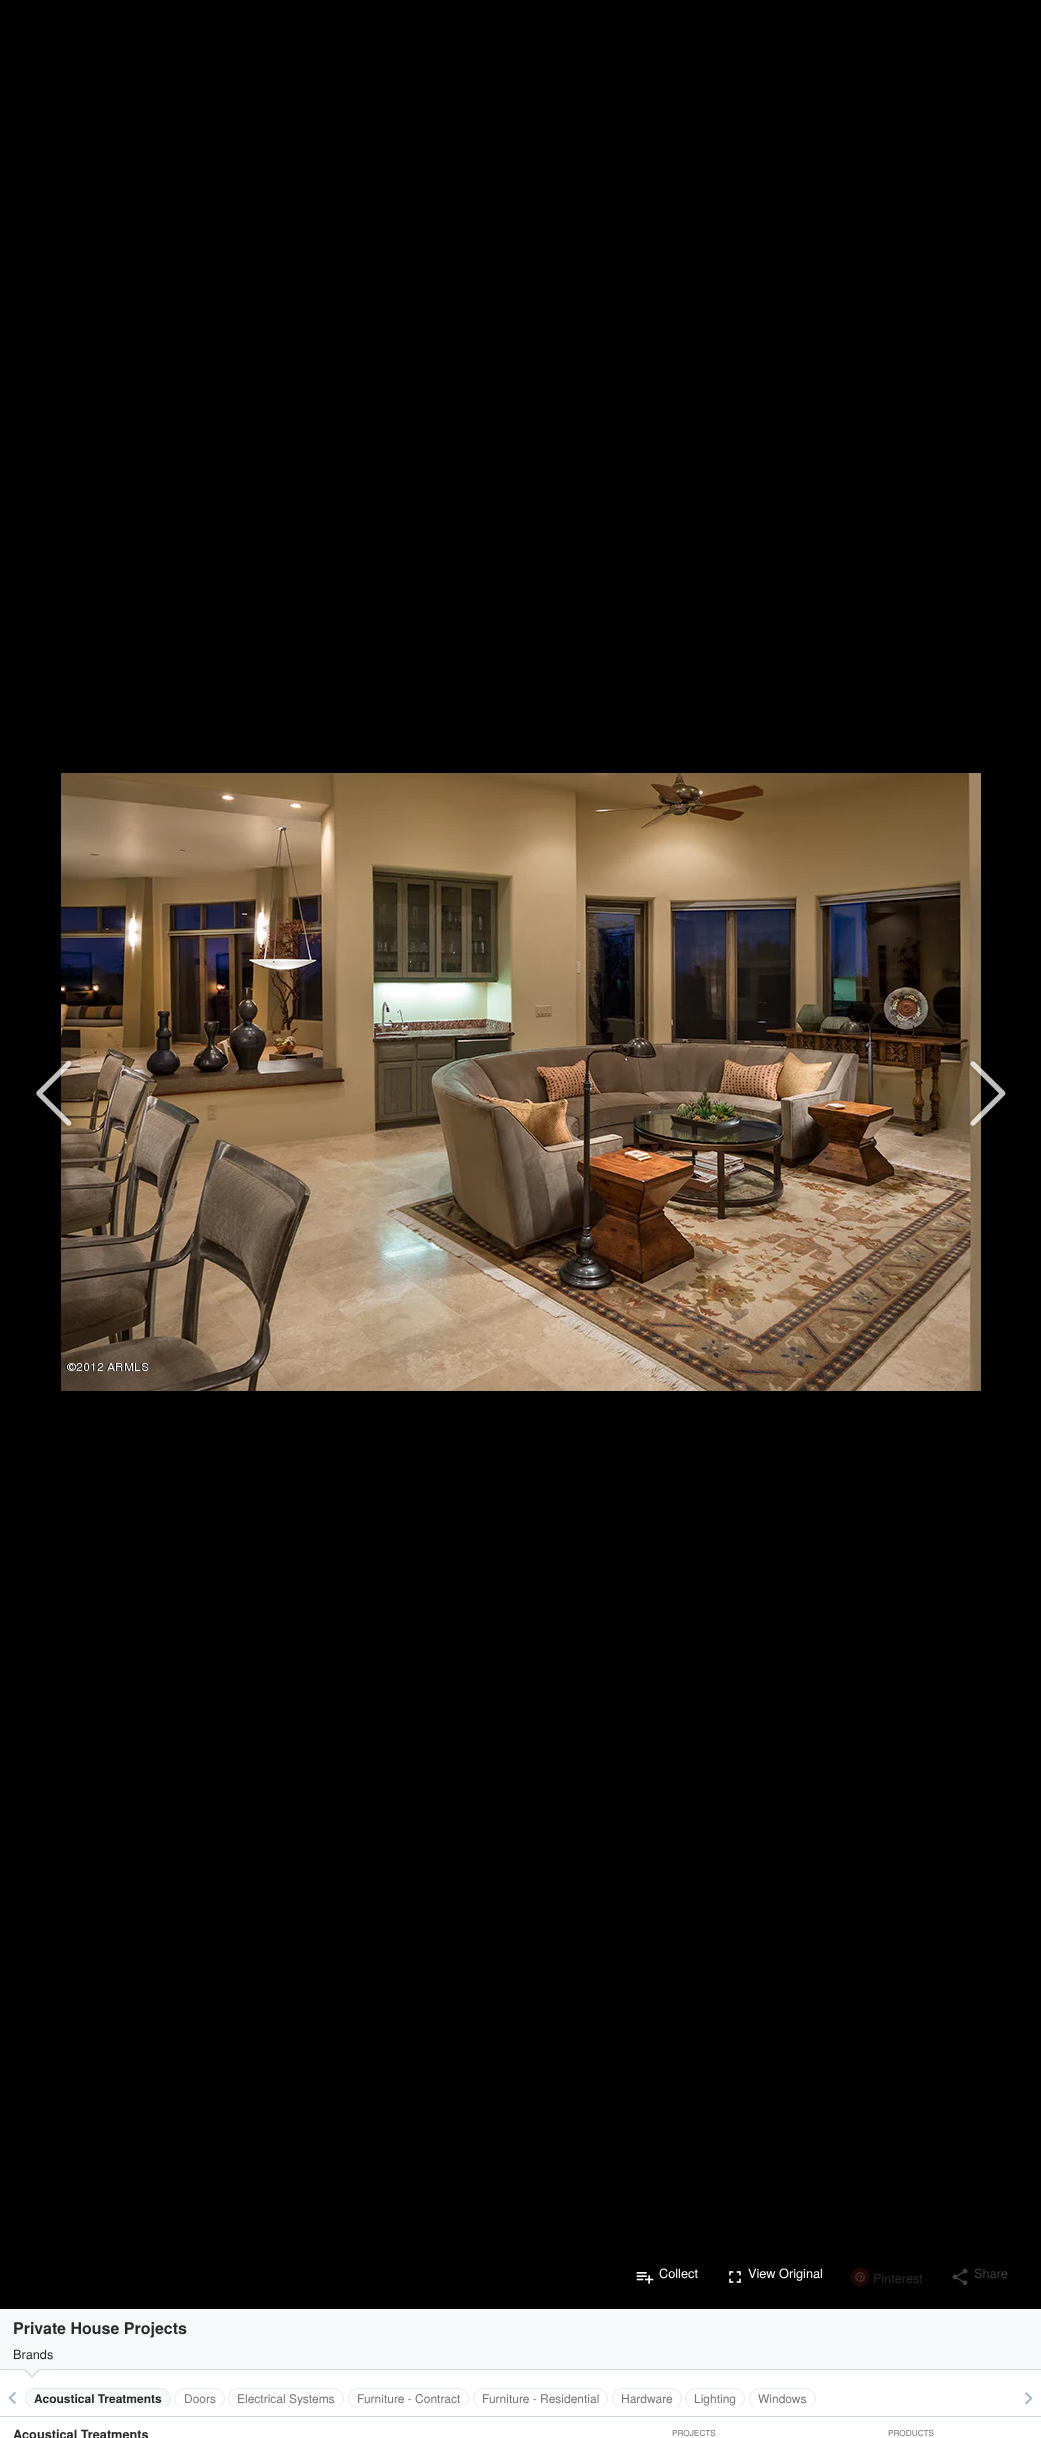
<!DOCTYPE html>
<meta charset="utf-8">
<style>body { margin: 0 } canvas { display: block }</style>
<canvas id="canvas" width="1041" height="2438"></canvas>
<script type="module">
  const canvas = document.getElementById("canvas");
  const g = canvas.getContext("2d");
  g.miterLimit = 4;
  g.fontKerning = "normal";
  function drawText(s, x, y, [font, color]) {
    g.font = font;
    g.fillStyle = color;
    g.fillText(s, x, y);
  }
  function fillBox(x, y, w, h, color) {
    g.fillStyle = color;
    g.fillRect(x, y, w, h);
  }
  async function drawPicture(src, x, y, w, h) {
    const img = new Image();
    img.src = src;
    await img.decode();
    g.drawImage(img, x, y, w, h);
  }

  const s1 = ["12.75px TeX Gyre Heros", "#FFFFFF"];
  const s2 = ["12.75px TeX Gyre Heros", "#292929"];
  const s3 = ["12.75px TeX Gyre Heros", "#404040"];
  const s4 = ["bold 16px TeX Gyre Heros", "#292929"];
  const s5 = ["bold 12px TeX Gyre Heros", "#292929"];
  const s6 = ["12px TeX Gyre Heros", "#757575"];
  const s7 = ["bold 12.75px TeX Gyre Heros", "#292929"];
  const s8 = ["8.25px TeX Gyre Heros", "#757575"];

  fillBox(0, 0, 1041, 2438, "#FFFFFF");
  fillBox(0, 0, 1041, 2309, "#000000");
  await drawPicture("pic1.png", 61, 773, 920, 618);
  await drawPicture("pic2.png", 36, 1060, 38, 68);
  await drawPicture("pic3.png", 968, 1059, 38, 69);
  await drawPicture("pic4.png", 636, 2272, 18, 12);
  drawText("Collect", 659, 2278, s1);
  await drawPicture("pic5.png", 729, 2271, 12, 12);
  drawText("View Original", 748, 2278, s1);
  await drawPicture("pic6.png", 850, 2267, 20, 20);
  drawText("Pinterest", 873, 2283, s2);
  await drawPicture("pic7.png", 952, 2268, 16, 18);
  drawText("Share", 974, 2278, s3);
  fillBox(0, 2309, 1041, 60, "#F7F9FA");
  fillBox(0, 2369, 1041, 1, "#CED9DF");
  drawText("Private House Projects", 13, 2334, s4);
  drawText("Brands", 13, 2359, s2);
  g.fillStyle = "#CED9DF";
  g.beginPath();
  g.moveTo(23, 2369);
  g.lineTo(41, 2369);
  g.lineTo(32, 2378);
  g.closePath();
  g.fill();
  g.fillStyle = "#F7F9FA";
  g.beginPath();
  g.moveTo(24, 2368);
  g.lineTo(40, 2368);
  g.lineTo(32, 2376);
  g.closePath();
  g.fill();
  await drawPicture("pic8.png", 8, 2391, 8, 14);
  g.save();
  g.beginPath();
  g.rect(25, 2382, 991, 25);
  g.clip();
  g.beginPath();
  g.roundRect(25.5, 2388.5, 145, 20, 10);
  g.fill();
  g.strokeStyle = "#E3EAED";
  g.stroke();
  g.restore();
  drawText("Acoustical Treatments", 34, 2403, s5);
  g.save();
  g.beginPath();
  g.rect(25, 2382, 991, 25);
  g.clip();
  g.beginPath();
  g.roundRect(174.5, 2388.5, 50, 20, 10);
  g.strokeStyle = "#E3EAED";
  g.stroke();
  g.restore();
  drawText("Doors", 184, 2403, s6);
  g.save();
  g.beginPath();
  g.rect(25, 2382, 991, 25);
  g.clip();
  g.beginPath();
  g.roundRect(228.5, 2388.5, 115, 20, 10);
  g.strokeStyle = "#E3EAED";
  g.stroke();
  g.restore();
  drawText("Electrical Systems", 237, 2403, s6);
  g.save();
  g.beginPath();
  g.rect(25, 2382, 991, 25);
  g.clip();
  g.beginPath();
  g.roundRect(348.5, 2388.5, 120, 20, 10);
  g.strokeStyle = "#E3EAED";
  g.stroke();
  g.restore();
  drawText("Furniture - Contract", 357, 2403, s6);
  g.save();
  g.beginPath();
  g.rect(25, 2382, 991, 25);
  g.clip();
  g.beginPath();
  g.roundRect(473.5, 2388.5, 134, 20, 10);
  g.strokeStyle = "#E3EAED";
  g.stroke();
  g.restore();
  drawText("Furniture - Residential", 482, 2403, s6);
  g.save();
  g.beginPath();
  g.rect(25, 2382, 991, 25);
  g.clip();
  g.beginPath();
  g.roundRect(612.5, 2388.5, 69, 20, 10);
  g.strokeStyle = "#E3EAED";
  g.stroke();
  g.restore();
  drawText("Hardware", 621, 2403, s6);
  g.save();
  g.beginPath();
  g.rect(25, 2382, 991, 25);
  g.clip();
  g.beginPath();
  g.roundRect(685.5, 2388.5, 59, 20, 10);
  g.strokeStyle = "#E3EAED";
  g.stroke();
  g.restore();
  drawText("Lighting", 694, 2403, s6);
  g.save();
  g.beginPath();
  g.rect(25, 2382, 991, 25);
  g.clip();
  g.beginPath();
  g.roundRect(749.5, 2388.5, 66, 20, 10);
  g.strokeStyle = "#E3EAED";
  g.stroke();
  g.restore();
  drawText("Windows", 758, 2403, s6);
  await drawPicture("pic9.png", 1025, 2392, 8, 13);
  fillBox(0, 2416, 1041, 1, "#CED9DF");
  drawText("Acoustical Treatments", 13, 2439, s7);
  drawText("PROJECTS", 672, 2436, s8);
  drawText("PRODUCTS", 888, 2436, s8);
</script>
